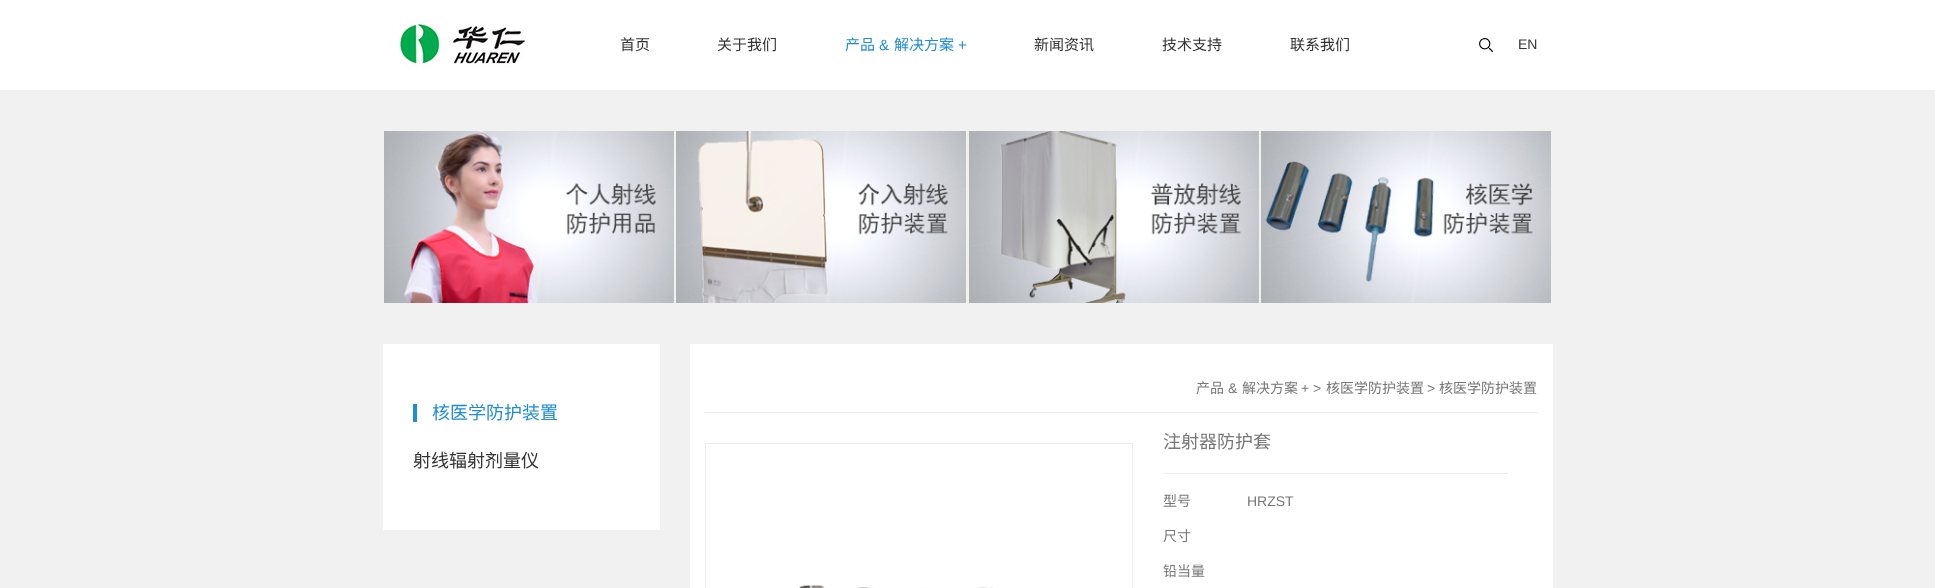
<!DOCTYPE html>
<meta charset="utf-8">
<style>body { margin: 0 } canvas { display: block }</style>
<canvas id="canvas" width="1935" height="588"></canvas>
<script type="module">
  const canvas = document.getElementById("canvas");
  const g = canvas.getContext("2d");
  g.miterLimit = 4;
  g.fontKerning = "normal";
  function drawText(s, x, y, [font, color]) {
    g.font = font;
    g.fillStyle = color;
    g.fillText(s, x, y);
  }
  function fillBox(x, y, w, h, color) {
    g.fillStyle = color;
    g.fillRect(x, y, w, h);
  }
  async function drawPicture(src, x, y, w, h) {
    const img = new Image();
    img.src = src;
    await img.decode();
    g.drawImage(img, x, y, w, h);
  }

  const s1 = ["15px Noto Sans CJK SC", "#333333"];
  const s2 = ["15px Noto Sans CJK SC", "#208CD4"];
  const s3 = ["15px Liberation Sans", "#208CD4"];
  const s4 = ["14px Liberation Sans", "#333333"];
  const s5 = ["18px Noto Sans CJK SC", "#208CD4"];
  const s6 = ["18px Noto Sans CJK SC", "#333333"];
  const s7 = ["14px Noto Sans CJK SC", "#777777"];
  const s8 = ["14px Liberation Sans", "#777777"];
  const s9 = ["18px Noto Sans CJK SC", "#777777"];

  fillBox(0, 0, 1935, 588, "#F1F1F1");
  fillBox(0, 0, 1935, 90, "#FFFFFF");
  await drawPicture("pic1.png", 399, 20, 126, 48);
  drawText("首页", 620, 50, s1);
  drawText("关于我们", 717, 50, s1);
  drawText("产品", 845, 50, s2);
  drawText("&", 879, 50, s3);
  drawText("解决方案", 894, 50, s2);
  drawText("+", 958, 50, s3);
  drawText("新闻资讯", 1034, 50, s1);
  drawText("技术支持", 1162, 50, s1);
  drawText("联系我们", 1290, 50, s1);
  await drawPicture("pic2.png", 1479, 38, 14, 14);
  drawText("EN", 1518, 49, s4);
  await drawPicture("pic3.png", 384, 131, 290, 172);
  await drawPicture("pic4.png", 676, 131, 290, 172);
  await drawPicture("pic5.png", 969, 131, 290, 172);
  await drawPicture("pic6.png", 1261, 131, 290, 172);
  fillBox(383, 344, 277, 186, "#FFFFFF");
  fillBox(413, 404, 4, 18, "#208CD4");
  drawText("核医学防护装置", 432, 419, s5);
  drawText("射线辐射剂量仪", 413, 467, s6);
  fillBox(690, 344, 863, 244, "#FFFFFF");
  fillBox(705, 412, 833, 1, "#EEEEEE");
  drawText("产品", 1196, 393, s7);
  drawText("&", 1228, 393, s8);
  drawText("解决方案", 1242, 393, s7);
  drawText("+ >", 1301, 393, s8);
  drawText("核医学防护装置", 1326, 393, s7);
  drawText(">", 1427, 393, s8);
  drawText("核医学防护装置", 1439, 393, s7);
  g.strokeStyle = "#EEEEEE";
  g.strokeRect(705.5, 443.5, 427, 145);
  await drawPicture("pic7.png", 799, 585, 194, 3);
  fillBox(1163, 473, 345, 1, "#EEEEEE");
  drawText("注射器防护套", 1163, 448, s9);
  drawText("型号", 1163, 506, s7);
  drawText("HRZST", 1247, 506, s8);
  drawText("尺寸", 1163, 541, s7);
  drawText("铅当量", 1163, 576, s7);
</script>
